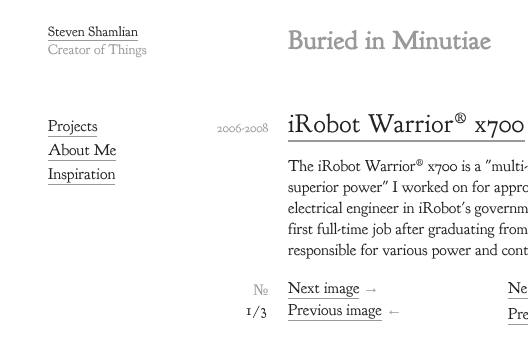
<!DOCTYPE html>
<meta charset="utf-8">
<style>body { margin: 0 } canvas { display: block }</style>
<canvas id="canvas" width="528" height="343"></canvas>
<script type="module">
  const canvas = document.getElementById("canvas");
  const g = canvas.getContext("2d");
  g.miterLimit = 4;
  g.fontKerning = "normal";
  function drawText(s, x, y, [font, color]) {
    g.font = font;
    g.fillStyle = color;
    g.fillText(s, x, y);
  }
  function fillBox(x, y, w, h, color) {
    g.fillStyle = color;
    g.fillRect(x, y, w, h);
  }

  const s1 = ["14px 'Goudy Bookletter 1911'", "#222222"];
  const s2 = ["14px 'Goudy Bookletter 1911'", "#999999"];
  const s3 = ["bold 26px 'Goudy Bookletter 1911'", "#999999"];
  const s4 = ["16px 'Goudy Bookletter 1911'", "#222222"];
  const s5 = ["13px 'Goudy Bookletter 1911'", "#999999"];
  const s6 = ["26px 'Goudy Bookletter 1911'", "#222222"];
  const s7 = ["16px Liberation Serif", "#999999"];

  fillBox(0, 0, 528, 343, "#FFFFFF");
  drawText("Steven Shamlian", 48, 36, s1);
  fillBox(48, 40, 90, 1, "#999999");
  drawText("Creator of Things", 48, 54, s2);
  g.letterSpacing = "0.5px";
  drawText("Buried in Minutiae", 288, 49, s3);
  g.letterSpacing = "0px";
  drawText("Projects", 48, 131, s4);
  fillBox(48, 136, 49, 1, "#999999");
  drawText("About Me", 48, 155, s4);
  fillBox(48, 160, 68, 1, "#999999");
  drawText("Inspiration", 48, 179, s4);
  fillBox(48, 184, 67, 1, "#999999");
  drawText("2006-2008", 217, 132, s5);
  g.letterSpacing = "0.5px";
  drawText("iRobot Warrior® x700", 288, 132, s6);
  fillBox(288, 140, 237, 2, "#999999");
  g.letterSpacing = "0px";
  drawText("The iRobot Warrior® x700 is a \"multi-", 288, 171, s4);
  drawText("superior power\" I worked on for appro", 288, 192, s4);
  drawText("electrical engineer in iRobot's governm", 288, 213, s4);
  drawText("first full-time job after graduating from", 288, 234, s4);
  drawText("responsible for various power and cont", 288, 255, s4);
  drawText("№", 253, 295, s7);
  g.letterSpacing = "1px";
  drawText("1/3", 246, 315, s4);
  g.letterSpacing = "0px";
  drawText("Next image", 288, 293, s4);
  fillBox(288, 298, 71, 1, "#999999");
  drawText("→", 363, 293, s7);
  drawText("Previous image", 288, 315, s4);
  fillBox(288, 320, 94, 1, "#999999");
  drawText("←", 386, 315, s7);
  drawText("Ne", 508, 293, s4);
  fillBox(508, 298, 20, 1, "#999999");
  drawText("Pre", 508, 319, s4);
  fillBox(508, 324, 20, 1, "#999999");
</script>
